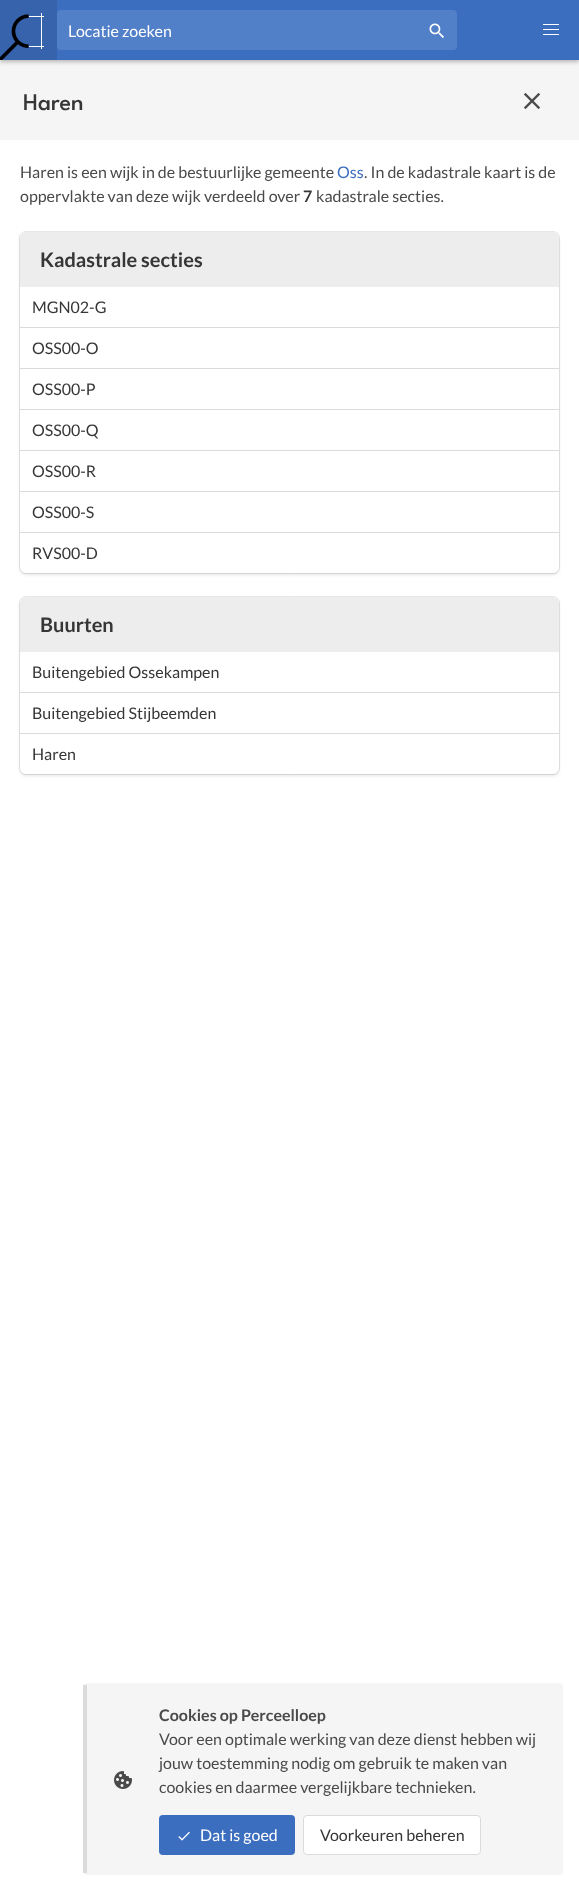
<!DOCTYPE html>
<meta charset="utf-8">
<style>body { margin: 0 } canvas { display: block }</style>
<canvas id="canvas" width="579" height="1899"></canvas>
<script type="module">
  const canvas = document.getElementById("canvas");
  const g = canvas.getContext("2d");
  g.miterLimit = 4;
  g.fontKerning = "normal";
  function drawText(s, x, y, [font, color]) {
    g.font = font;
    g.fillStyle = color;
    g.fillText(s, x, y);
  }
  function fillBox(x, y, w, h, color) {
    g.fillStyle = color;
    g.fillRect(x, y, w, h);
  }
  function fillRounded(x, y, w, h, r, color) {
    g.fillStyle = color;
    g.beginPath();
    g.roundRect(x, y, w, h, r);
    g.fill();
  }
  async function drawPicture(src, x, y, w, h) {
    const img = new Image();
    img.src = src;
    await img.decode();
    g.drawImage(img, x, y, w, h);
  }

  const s1 = ["16px Lato", "#FFFFFF"];
  const s2 = ["100 24px League Spartan", "#363636"];
  const s3 = ["16px Lato", "#4A4A4A"];
  const s4 = ["16px Lato", "#3C6EBF"];
  const s5 = ["bold 16px Lato", "#363636"];
  const s6 = ["bold 20px Lato", "#363636"];
  const s7 = ["16px Lato", "#363636"];
  const s8 = ["bold 16px Lato", "#4A4A4A"];

  fillBox(0, 0, 579, 1899, "#FFFFFF");
  fillBox(0, 60, 579, 80, "#F5F5F5");
  g.fillStyle = "rgba(0, 0, 0, 0.25)";
  g.filter = "blur(2px)";
  g.beginPath();
  g.rect(0, 2, 579, 60);
  g.fill();
  g.filter = "none";
  fillBox(57, 0, 522, 60, "#3C6EBF");
  fillBox(0, 0, 57, 60, "#3663AC");
  await drawPicture("pic1.png", 0, 13, 44, 47);
  fillRounded(57, 10, 400, 40, 4, "#517FC8");
  drawText("Locatie zoeken", 68, 37, s1);
  await drawPicture("pic2.png", 429, 23, 15, 15);
  fillBox(543, 24, 16, 1, "#FFFFFF");
  fillBox(543, 29, 16, 1, "#FFFFFF");
  fillBox(543, 34, 16, 1, "#FFFFFF");
  drawText("Haren", 23, 110, s2);
  await drawPicture("pic3.png", 524, 93, 16, 16);
  drawText("Haren is een wijk in de bestuurlijke gemeente", 20, 178, s3);
  drawText("Oss", 337, 178, s4);
  drawText(". In de kadastrale kaart is de", 364, 178, s3);
  drawText("oppervlakte van deze wijk verdeeld over", 20, 202, s3);
  drawText("7", 303, 202, s5);
  drawText("kadastrale secties.", 316, 202, s3);
  g.beginPath();
  g.roundRect(19.5, 231.5, 540, 342, 6.5);
  g.strokeStyle = "#E7E7E7";
  g.stroke();
  g.save();
  g.beginPath();
  g.moveTo(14, 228);
  g.lineTo(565, 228);
  g.lineTo(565, 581);
  g.lineTo(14, 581);
  g.closePath();
  g.moveTo(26, 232);
  g.lineTo(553, 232);
  g.bezierCurveTo(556.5, 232, 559, 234.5, 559, 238);
  g.lineTo(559, 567);
  g.bezierCurveTo(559, 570.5, 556.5, 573, 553, 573);
  g.lineTo(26, 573);
  g.bezierCurveTo(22.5, 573, 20, 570.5, 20, 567);
  g.lineTo(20, 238);
  g.bezierCurveTo(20, 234.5, 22.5, 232, 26, 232);
  g.closePath();
  g.clip("evenodd");
  g.fillStyle = "rgba(10, 10, 10, 0.1)";
  g.filter = "blur(1.5px)";
  g.beginPath();
  g.roundRect(20, 234, 539, 341, 6);
  g.fill();
  g.filter = "none";
  g.restore();
  g.fillStyle = "#EDEDED";
  g.beginPath();
  g.roundRect(20, 232, 539, 55, [6, 6, 0, 0]);
  g.fill();
  drawText("Kadastrale secties", 40, 267, s6);
  fillBox(20, 327, 539, 1, "#DBDBDB");
  drawText("MGN02-G", 32, 313, s7);
  fillBox(20, 368, 539, 1, "#DBDBDB");
  drawText("OSS00-O", 32, 354, s7);
  fillBox(20, 409, 539, 1, "#DBDBDB");
  drawText("OSS00-P", 32, 395, s7);
  fillBox(20, 450, 539, 1, "#DBDBDB");
  drawText("OSS00-Q", 32, 436, s7);
  fillBox(20, 491, 539, 1, "#DBDBDB");
  drawText("OSS00-R", 32, 477, s7);
  fillBox(20, 532, 539, 1, "#DBDBDB");
  drawText("OSS00-S", 32, 518, s7);
  drawText("RVS00-D", 32, 559, s7);
  g.beginPath();
  g.roundRect(19.5, 596.5, 540, 178, 6.5);
  g.stroke();
  g.save();
  g.beginPath();
  g.moveTo(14, 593);
  g.lineTo(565, 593);
  g.lineTo(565, 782);
  g.lineTo(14, 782);
  g.closePath();
  g.moveTo(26, 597);
  g.lineTo(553, 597);
  g.bezierCurveTo(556.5, 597, 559, 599.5, 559, 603);
  g.lineTo(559, 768);
  g.bezierCurveTo(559, 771.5, 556.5, 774, 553, 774);
  g.lineTo(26, 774);
  g.bezierCurveTo(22.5, 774, 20, 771.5, 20, 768);
  g.lineTo(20, 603);
  g.bezierCurveTo(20, 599.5, 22.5, 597, 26, 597);
  g.closePath();
  g.clip("evenodd");
  g.fillStyle = "rgba(10, 10, 10, 0.1)";
  g.filter = "blur(1.5px)";
  g.beginPath();
  g.roundRect(20, 599, 539, 177, 6);
  g.fill();
  g.filter = "none";
  g.restore();
  g.fillStyle = "#EDEDED";
  g.beginPath();
  g.roundRect(20, 597, 539, 55, [6, 6, 0, 0]);
  g.fill();
  drawText("Buurten", 40, 632, s6);
  fillBox(20, 692, 539, 1, "#DBDBDB");
  drawText("Buitengebied Ossekampen", 32, 678, s7);
  fillBox(20, 733, 539, 1, "#DBDBDB");
  drawText("Buitengebied Stijbeemden", 32, 719, s7);
  drawText("Haren", 32, 760, s7);
  fillRounded(83, 1683, 480, 192, 4, "#F5F5F5");
  fillBox(83, 1685, 4, 188, "#DBDBDB");
  await drawPicture("pic4.png", 114, 1771, 18, 18);
  drawText("Cookies op Perceelloep", 159, 1721, s8);
  drawText("Voor een optimale werking van deze dienst hebben wij", 159, 1745, s3);
  drawText("jouw toestemming nodig om gebruik te maken van", 159, 1769, s3);
  drawText("cookies en daarmee vergelijkbare technieken.", 159, 1793, s3);
  fillRounded(159, 1815, 136, 40, 4, "#3C6EBF");
  await drawPicture("pic5.png", 178, 1831, 12, 10);
  drawText("Dat is goed", 200, 1841, s1);
  g.beginPath();
  g.roundRect(303.5, 1815.5, 177, 39, 3.5);
  g.fill();
  g.strokeStyle = "#DBDBDB";
  g.stroke();
  drawText("Voorkeuren beheren", 320, 1841, s7);
</script>
